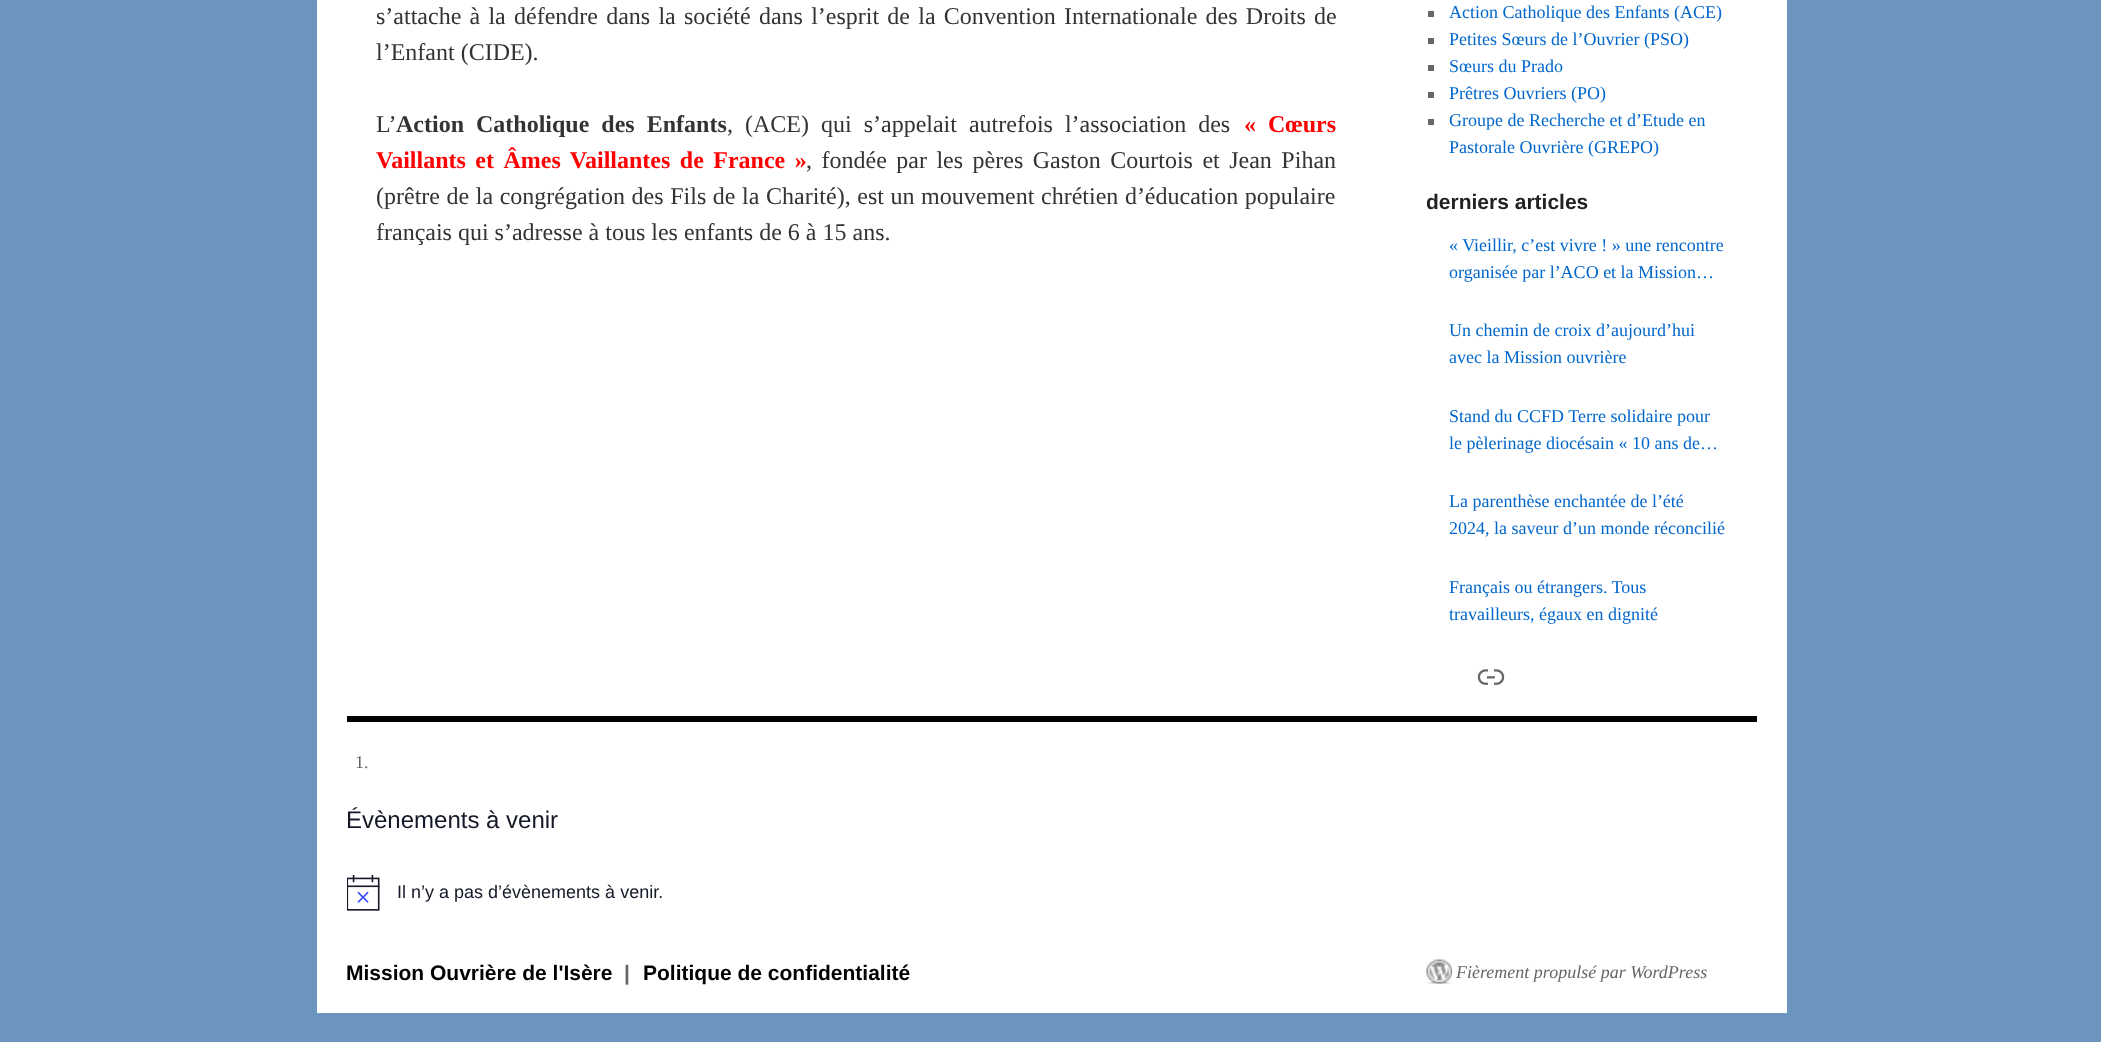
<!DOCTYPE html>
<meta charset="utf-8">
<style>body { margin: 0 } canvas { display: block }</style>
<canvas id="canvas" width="2101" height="1042"></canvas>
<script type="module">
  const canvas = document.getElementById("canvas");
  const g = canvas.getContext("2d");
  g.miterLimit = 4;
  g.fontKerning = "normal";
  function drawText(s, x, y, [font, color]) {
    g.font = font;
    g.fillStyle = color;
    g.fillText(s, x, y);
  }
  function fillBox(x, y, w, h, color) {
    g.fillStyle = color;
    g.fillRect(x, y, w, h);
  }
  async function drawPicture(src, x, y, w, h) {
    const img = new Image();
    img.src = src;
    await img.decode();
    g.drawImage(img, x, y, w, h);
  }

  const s1 = ["24px Liberation Serif", "#333333"];
  const s2 = ["bold 24px Liberation Serif", "#333333"];
  const s3 = ["bold 24px Liberation Serif", "#FF0000"];
  const s4 = ["18px Liberation Serif", "#0066CC"];
  const s5 = ["bold 21px Liberation Sans", "#222222"];
  const s6 = ["18px Liberation Serif", "#666666"];
  const s7 = ["24px Liberation Sans", "#141827"];
  const s8 = ["18px Liberation Sans", "#141827"];
  const s9 = ["bold 21px Liberation Sans", "#000000"];
  const s10 = ["bold 21px Liberation Sans", "#666666"];
  const s11 = ["italic 18px Liberation Serif", "#666666"];

  fillBox(0, 0, 2101, 1042, "#6B95BF");
  fillBox(317, 0, 1470, 1013, "#FFFFFF");
  g.wordSpacing = "2.25px";
  drawText("s’attache à la défendre dans la société dans l’esprit de la Convention Internationale des Droits de", 376, 24, s1);
  g.wordSpacing = "0px";
  drawText("l’Enfant (CIDE).", 376, 60, s1);
  drawText("L’", 376, 132, s1);
  g.wordSpacing = "6px";
  drawText("Action Catholique des Enfants", 396, 132, s2);
  drawText(", (ACE) qui s’appelait autrefois l’association des", 727, 132, s1);
  g.wordSpacing = "0px";
  drawText("«", 1244, 132, s3);
  drawText("Cœurs", 1268, 132, s3);
  g.wordSpacing = "3.5px";
  drawText("Vaillants et Âmes Vaillantes de France »", 376, 168, s3);
  drawText(", fondée par les pères Gaston Courtois et Jean Pihan", 806, 168, s1);
  g.wordSpacing = "0.6px";
  drawText("(prêtre de la congrégation des Fils de la Charité), est un mouvement chrétien d’éducation populaire", 376, 204, s1);
  g.wordSpacing = "0px";
  drawText("français qui s’adresse à tous les enfants de 6 à 15 ans.", 376, 240, s1);
  fillBox(1428, 11, 6, 6, "#666666");
  drawText("Action Catholique des Enfants (ACE)", 1449, 18, s4);
  fillBox(1428, 38, 6, 6, "#666666");
  drawText("Petites Sœurs de l’Ouvrier (PSO)", 1449, 45, s4);
  fillBox(1428, 65, 6, 6, "#666666");
  drawText("Sœurs du Prado", 1449, 72, s4);
  fillBox(1428, 92, 6, 6, "#666666");
  drawText("Prêtres Ouvriers (PO)", 1449, 99, s4);
  fillBox(1428, 119, 6, 6, "#666666");
  drawText("Groupe de Recherche et d’Etude en", 1449, 126, s4);
  drawText("Pastorale Ouvrière (GREPO)", 1449, 153, s4);
  g.save();
  g.beginPath();
  g.rect(1427, 0, 330, 659);
  g.clip();
  drawText("derniers articles", 1426, 209, s5);
  g.restore();
  drawText("« Vieillir, c’est vivre ! » une rencontre", 1449, 251, s4);
  drawText("organisée par l’ACO et la Mission…", 1449, 278, s4);
  drawText("Un chemin de croix d’aujourd’hui", 1449, 336, s4);
  drawText("avec la Mission ouvrière", 1449, 363, s4);
  drawText("Stand du CCFD Terre solidaire pour", 1449, 422, s4);
  drawText("le pèlerinage diocésain « 10 ans de…", 1449, 449, s4);
  drawText("La parenthèse enchantée de l’été", 1449, 507, s4);
  drawText("2024, la saveur d’un monde réconcilié", 1449, 534, s4);
  drawText("Français ou étrangers. Tous", 1449, 593, s4);
  drawText("travailleurs, égaux en dignité", 1449, 620, s4);
  await drawPicture("pic1.png", 1477, 669, 28, 16);
  fillBox(347, 716, 1410, 6, "#000000");
  drawText("1.", 355, 768, s6);
  drawText("Évènements à venir", 346, 828, s7);
  await drawPicture("pic2.png", 347, 875, 33, 36);
  drawText("Il n’y a pas d’évènements à venir.", 397, 898, s8);
  drawText("Mission Ouvrière de l'Isère", 346, 980, s9);
  drawText("|", 624, 980, s10);
  drawText("Politique de confidentialité", 643, 980, s9);
  await drawPicture("pic3.png", 1426, 959, 26, 25);
  drawText("Fièrement propulsé par WordPress", 1456, 978, s11);
</script>
